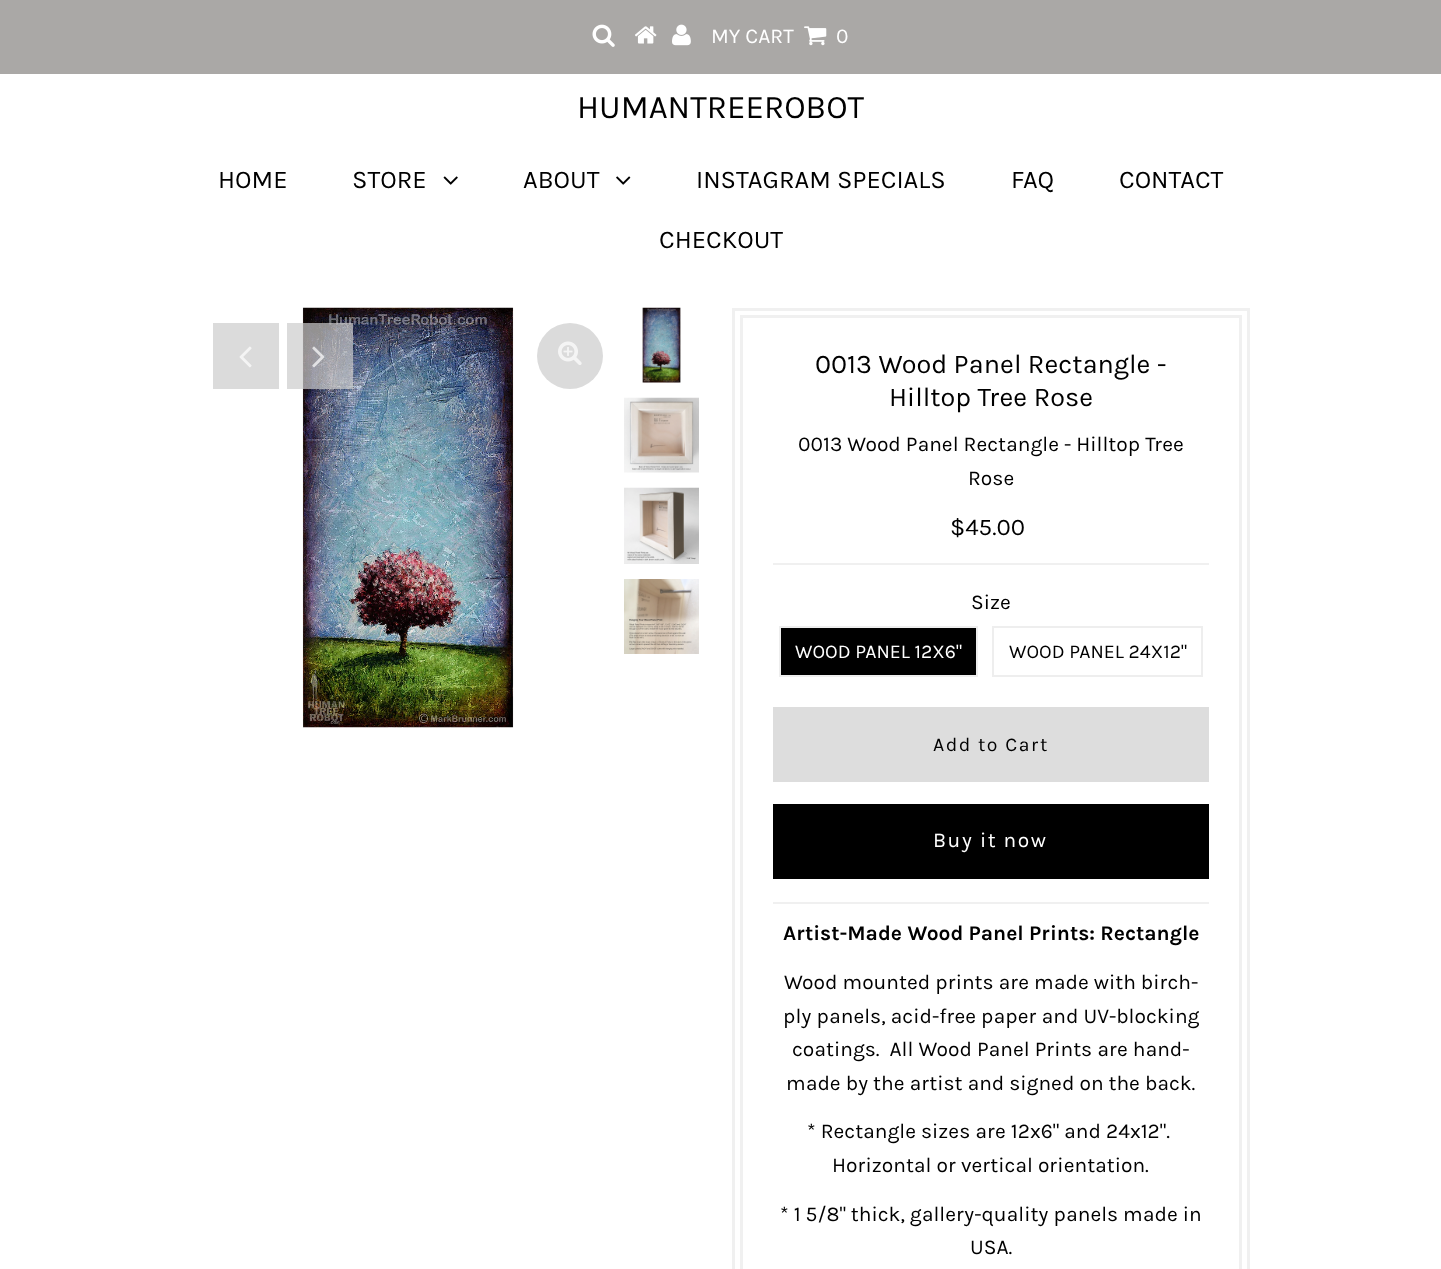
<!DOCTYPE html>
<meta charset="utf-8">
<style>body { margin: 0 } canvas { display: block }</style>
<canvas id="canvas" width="1441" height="1269"></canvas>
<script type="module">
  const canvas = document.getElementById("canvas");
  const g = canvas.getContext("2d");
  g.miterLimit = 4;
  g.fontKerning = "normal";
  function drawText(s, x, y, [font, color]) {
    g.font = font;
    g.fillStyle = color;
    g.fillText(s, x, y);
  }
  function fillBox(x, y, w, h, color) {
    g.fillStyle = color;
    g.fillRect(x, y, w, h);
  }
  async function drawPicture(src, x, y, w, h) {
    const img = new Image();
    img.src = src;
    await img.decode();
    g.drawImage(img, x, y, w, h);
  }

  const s1 = ["21px Karla", "#FFFFFF"];
  const s2 = ["33px Karla", "#000000"];
  const s3 = ["25.5px Karla", "#000000"];
  const s4 = ["27px Karla", "#000000"];
  const s5 = ["21px Karla", "#000000"];
  const s6 = ["24px Karla", "#000000"];
  const s7 = ["19.5px Karla", "#FFFFFF"];
  const s8 = ["19.5px Karla", "#000000"];
  const s9 = ["bold 21px Karla", "#000000"];

  fillBox(0, 0, 1441, 1269, "#FFFFFF");
  fillBox(0, 0, 1441, 74, "#AAA8A6");
  await drawPicture("pic1.png", 592, 24, 23, 23);
  await drawPicture("pic2.png", 635, 26, 22, 18);
  await drawPicture("pic3.png", 672, 24, 19, 22);
  drawText("MY CART", 711, 43, s1);
  await drawPicture("pic4.png", 804, 26, 23, 20);
  drawText("0", 836, 43, s1);
  drawText("HUMANTREEROBOT", 577, 118, s2);
  drawText("HOME", 218, 188, s3);
  drawText("STORE", 352, 188, s3);
  await drawPicture("pic5.png", 443, 176, 15, 9);
  drawText("ABOUT", 523, 188, s3);
  await drawPicture("pic6.png", 616, 176, 15, 9);
  drawText("INSTAGRAM SPECIALS", 696, 188, s3);
  drawText("FAQ", 1011, 188, s3);
  drawText("CONTACT", 1119, 188, s3);
  drawText("CHECKOUT", 659, 248, s3);
  fillBox(213, 323, 66, 66, "#DBDBDB");
  await drawPicture("pic7.png", 239, 346, 13, 22);
  await drawPicture("pic8.png", 302, 307, 212, 421);
  g.beginPath();
  g.arc(570, 356, 33, 0, Math.PI * 2);
  g.fill();
  await drawPicture("pic9.png", 558, 341, 24, 24);
  fillBox(287, 323, 66, 66, "rgba(204, 204, 204, 0.7)");
  await drawPicture("pic10.png", 312, 346, 13, 22);
  await drawPicture("pic11.png", 642, 307, 39, 76);
  await drawPicture("pic12.png", 624, 397, 75, 76);
  await drawPicture("pic13.png", 624, 487, 75, 77);
  await drawPicture("pic14.png", 624, 579, 75, 75);
  g.strokeStyle = "#F0F0F0";
  g.lineWidth = 3;
  g.strokeRect(733.5, 309.5, 515, 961);
  g.strokeRect(741.5, 316.5, 499, 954);
  drawText("0013 Wood Panel Rectangle -", 815, 373, s4);
  drawText("Hilltop Tree Rose", 889, 406, s4);
  drawText("0013 Wood Panel Rectangle - Hilltop Tree", 798, 451, s5);
  drawText("Rose", 968, 485, s5);
  fillBox(773, 902, 436, 2, "#F0F0F0");
  fillBox(773, 563, 436, 2, "#F0F0F0");
  drawText("$45.00", 950, 535, s6);
  drawText("Size", 971, 609, s5);
  g.beginPath();
  g.rect(780, 627, 197, 49);
  g.fill();
  g.strokeStyle = "#EEEEEE";
  g.lineWidth = 2;
  g.stroke();
  drawText("WOOD PANEL 12X6\"", 795, 658, s7);
  g.strokeRect(993, 627, 209, 49);
  drawText("WOOD PANEL 24X12\"", 1009, 658, s8);
  fillBox(773, 707, 436, 75, "#DDDDDD");
  g.letterSpacing = "1.5px";
  drawText("Add to Cart", 933, 751, s8);
  fillBox(773, 804, 436, 75, "#000000");
  drawText("Buy it now", 933, 847, s1);
  g.letterSpacing = "0px";
  drawText("Artist-Made Wood Panel Prints: Rectangle", 783, 940, s9);
  drawText("Wood mounted prints are made with birch-", 784, 989, s5);
  drawText("ply panels, acid-free paper and UV-blocking", 783, 1023, s5);
  drawText("coatings.  All Wood Panel Prints are hand-", 792, 1056, s5);
  drawText("made by the artist and signed on the back.", 786, 1090, s5);
  drawText("* Rectangle sizes are 12x6\" and 24x12\".", 807, 1138, s5);
  drawText("Horizontal or vertical orientation.", 832, 1172, s5);
  drawText("* 1 5/8\" thick, gallery-quality panels made in", 780, 1221, s5);
  drawText("USA.", 970, 1254, s5);
</script>
